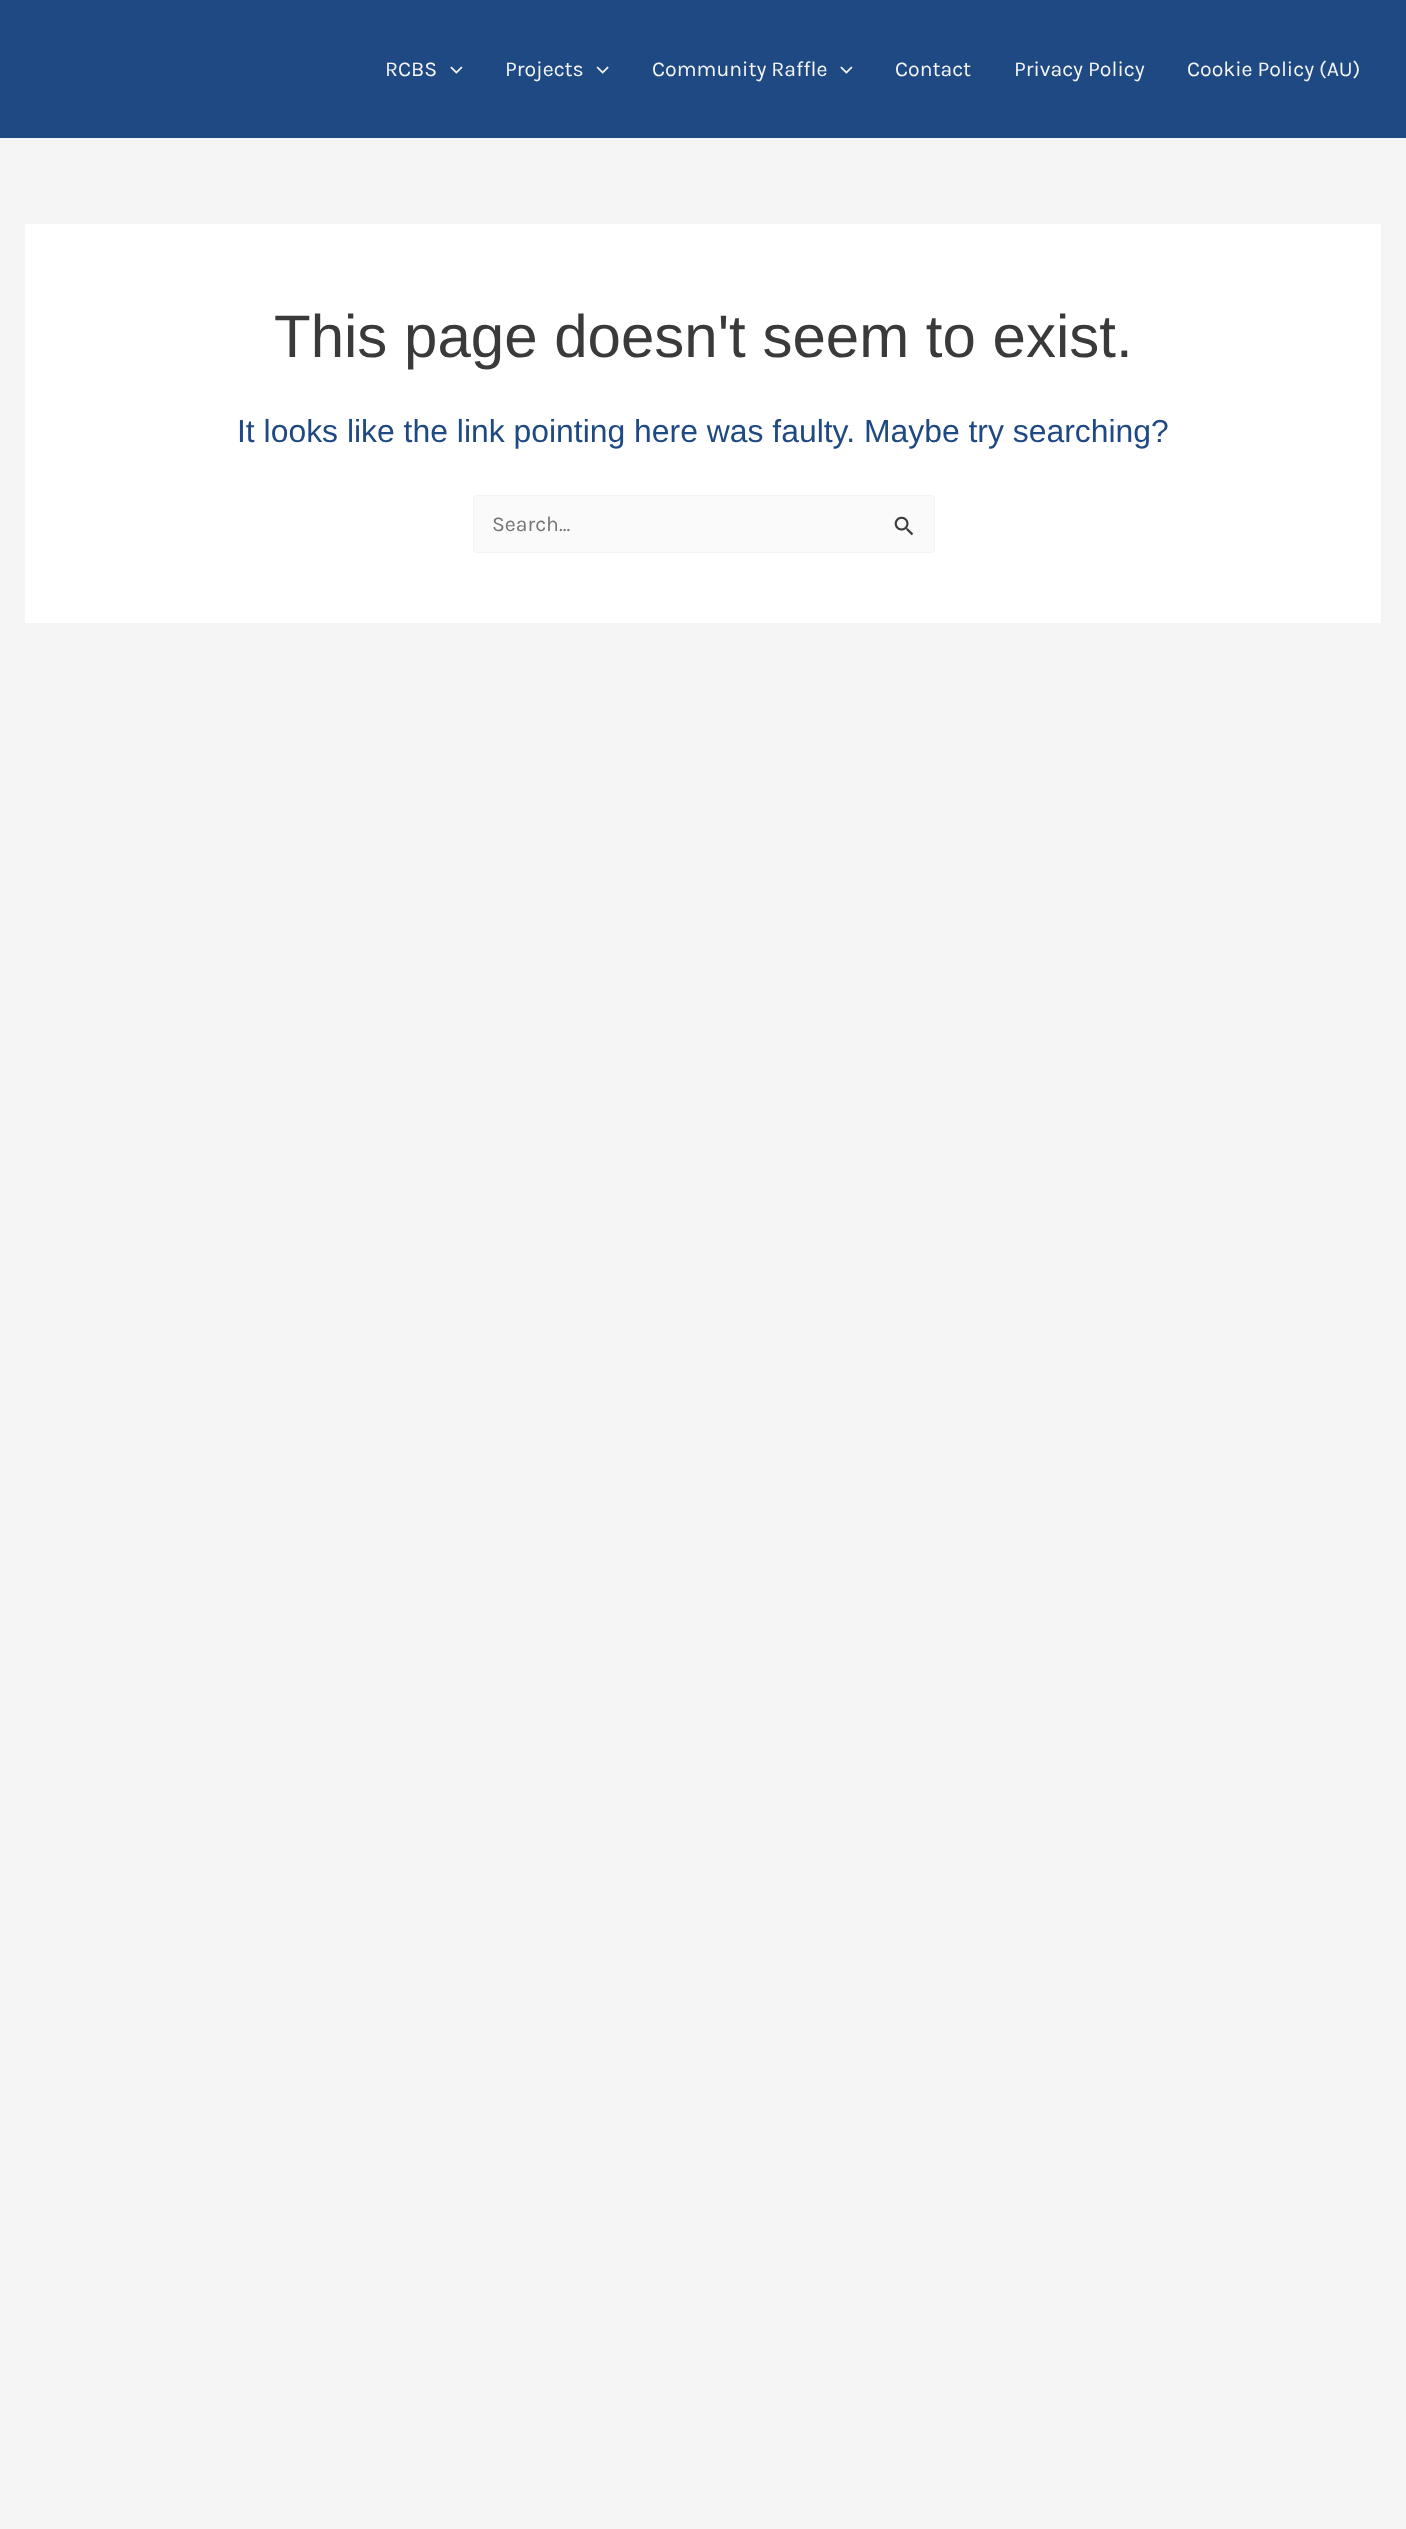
<!DOCTYPE html>
<meta charset="utf-8">
<style>body { margin: 0 } canvas { display: block }</style>
<canvas id="canvas" width="1406" height="2529"></canvas>
<script type="module">
  const canvas = document.getElementById("canvas");
  const g = canvas.getContext("2d");
  g.miterLimit = 4;
  g.fontKerning = "normal";
  function drawText(s, x, y, [font, color]) {
    g.font = font;
    g.fillStyle = color;
    g.fillText(s, x, y);
  }
  function fillBox(x, y, w, h, color) {
    g.fillStyle = color;
    g.fillRect(x, y, w, h);
  }
  async function drawPicture(src, x, y, w, h) {
    const img = new Image();
    img.src = src;
    await img.decode();
    g.drawImage(img, x, y, w, h);
  }

  const s1 = ["21.25px Karla", "#F5F5F5"];
  const s2 = ["60px Liberation Sans", "#3A3A3A"];
  const s3 = ["31.9px Liberation Sans", "#1F4982"];
  const s4 = ["21.25px Karla", "#757575"];

  fillBox(0, 0, 1406, 2529, "#F5F5F5");
  fillBox(0, 0, 1406, 138, "#1F4982");
  fillBox(0, 138, 1406, 1, "#F2F5F7");
  drawText("RCBS", 385, 76, s1);
  await drawPicture("pic1.png", 450, 66, 13, 8);
  drawText("Projects", 505, 76, s1);
  await drawPicture("pic2.png", 596, 66, 13, 8);
  drawText("Community Raffle", 652, 76, s1);
  await drawPicture("pic1.png", 840, 66, 13, 8);
  drawText("Contact", 895, 76, s1);
  drawText("Privacy Policy", 1014, 76, s1);
  drawText("Cookie Policy (AU)", 1187, 76, s1);
  fillBox(25, 224, 1356, 399, "#FFFFFF");
  drawText("This page doesn't seem to exist.", 274, 357, s2);
  drawText("It looks like the link pointing here was faulty. Maybe try searching?", 237, 442, s3);
  g.fillStyle = "#FAFAFA";
  g.beginPath();
  g.roundRect(473.5, 495.5, 461, 57, 2);
  g.fill();
  g.strokeStyle = "#F2F5F7";
  g.stroke();
  drawText("Search...", 492, 531, s4);
  await drawPicture("pic3.png", 894, 516, 20, 20);
</script>
